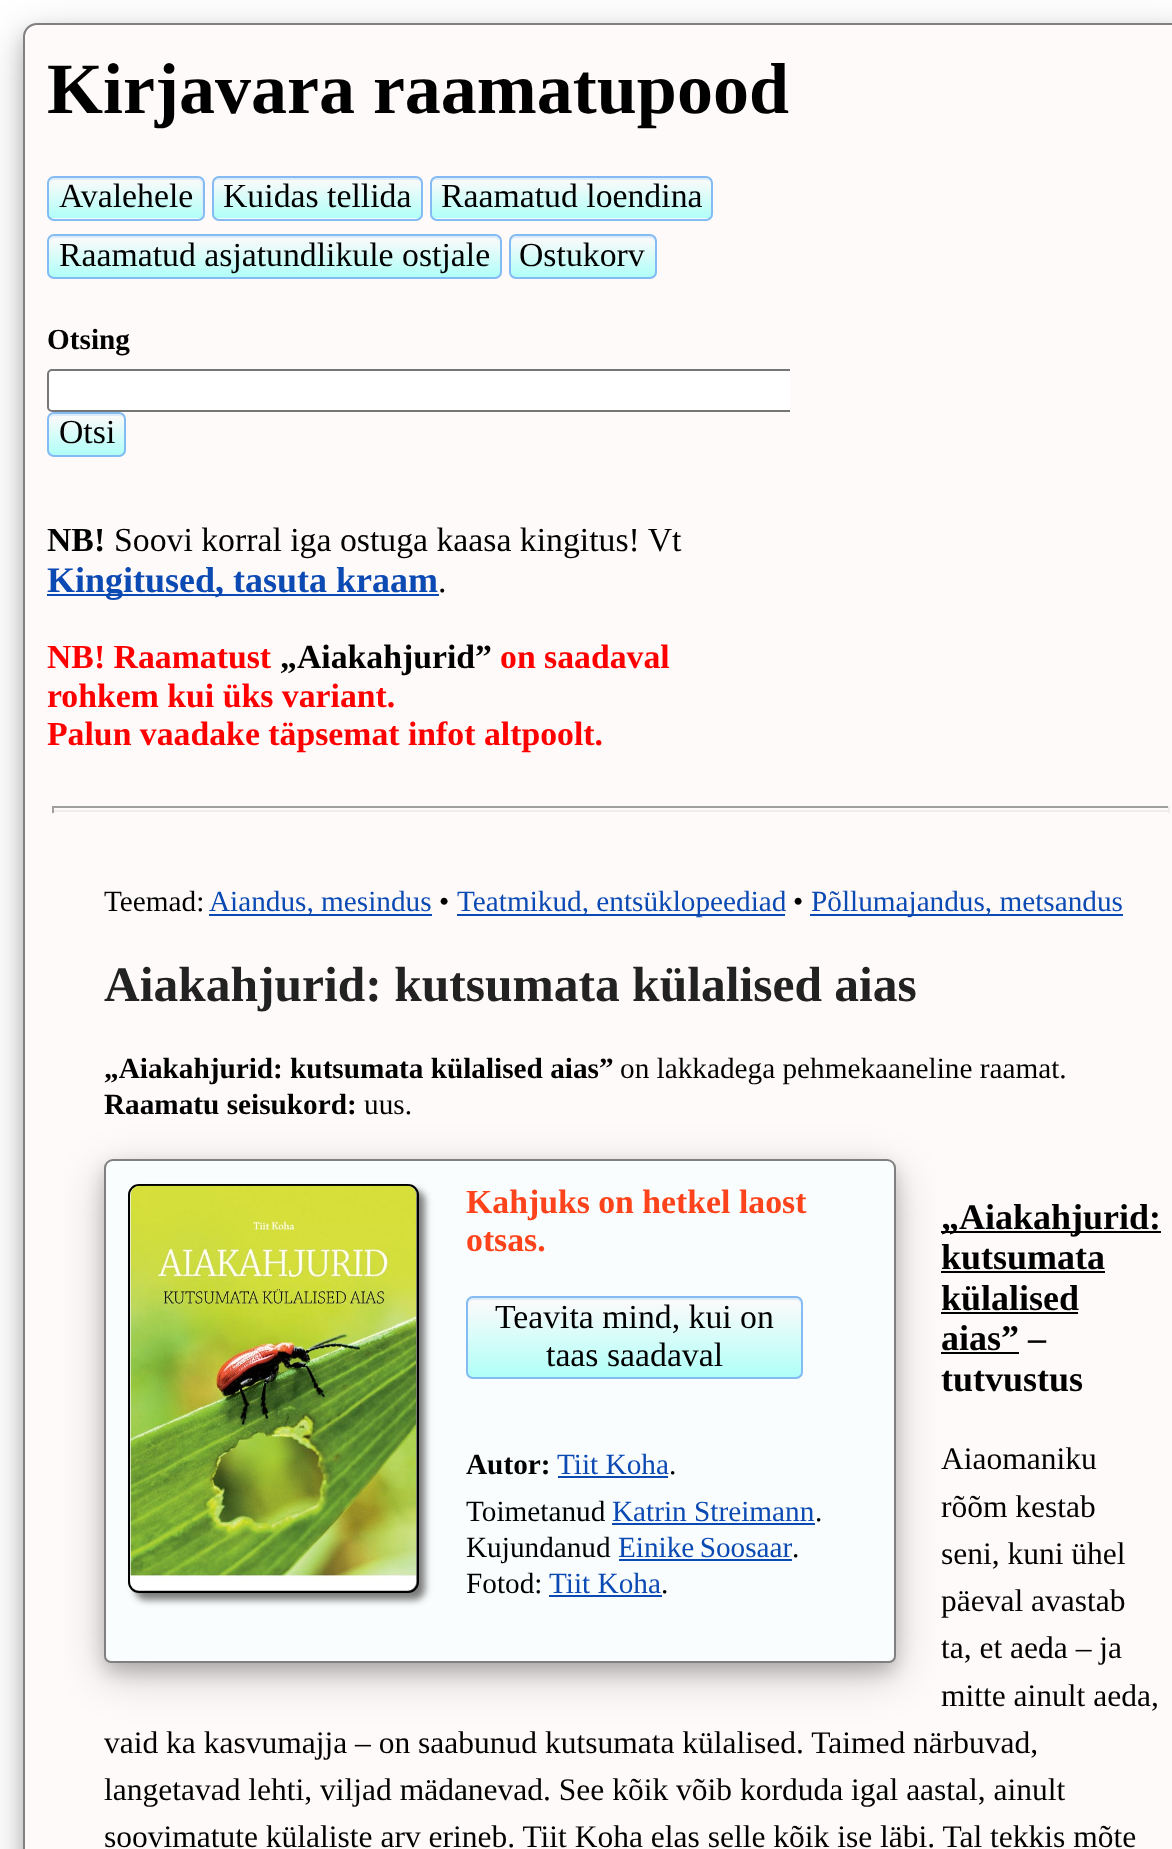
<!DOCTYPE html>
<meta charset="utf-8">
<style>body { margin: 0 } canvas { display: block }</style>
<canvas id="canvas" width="1172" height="1849"></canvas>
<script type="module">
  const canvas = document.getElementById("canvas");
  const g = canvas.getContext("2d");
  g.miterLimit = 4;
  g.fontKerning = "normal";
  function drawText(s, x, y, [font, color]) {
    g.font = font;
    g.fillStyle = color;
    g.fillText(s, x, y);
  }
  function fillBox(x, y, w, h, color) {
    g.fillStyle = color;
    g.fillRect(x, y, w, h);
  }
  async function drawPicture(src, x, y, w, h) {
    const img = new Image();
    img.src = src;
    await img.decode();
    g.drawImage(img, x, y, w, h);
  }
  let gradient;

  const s1 = ["bold 72px Liberation Serif", "#000000"];
  const s2 = ["33.75px Liberation Serif", "#000000"];
  const s3 = ["bold 29.25px Liberation Serif", "#000000"];
  const s4 = ["bold 33.75px Liberation Serif", "#000000"];
  const s5 = ["bold 36px Liberation Serif", "#0B49B3"];
  const s6 = ["bold 33.75px Liberation Serif", "#FF0000"];
  const s7 = ["29.25px Liberation Serif", "#000000"];
  const s8 = ["29.25px Liberation Serif", "#0B49B3"];
  const s9 = ["bold 49.5px Liberation Serif", "#222222"];
  const s10 = ["bold 33.75px Liberation Serif", "#FD431B"];
  const s11 = ["bold 36px Liberation Serif", "#000000"];
  const s12 = ["31.5px Liberation Serif", "#000000"];

  fillBox(0, 0, 1172, 1849, "#FFFFFF");
  g.fillStyle = "rgba(0, 0, 0, 0.19)";
  g.filter = "blur(22.5px)";
  g.beginPath();
  g.roundRect(23, 36, 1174, 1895, 14);
  g.fill();
  g.filter = "none";
  g.fillStyle = "rgba(0, 0, 0, 0.2)";
  g.filter = "blur(9px)";
  g.beginPath();
  g.roundRect(23, 32, 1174, 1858, 14);
  g.fill();
  g.filter = "none";
  g.fillStyle = "#FFFAFA";
  g.beginPath();
  g.roundRect(24, 24, 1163, 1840, 13);
  g.fill();
  g.strokeStyle = "#808080";
  g.lineWidth = 2;
  g.stroke();
  drawText("Kirjavara raamatupood", 47, 113, s1);
  g.save();
  g.beginPath();
  g.roundRect(47, 176, 158, 45, 7);
  g.clip();
  gradient = g.createLinearGradient(50, 178, 50, 218);
  gradient.addColorStop(0.05, "#FAFAFA");
  gradient.addColorStop(1, "#B0FFF8");
  g.fillStyle = gradient;
  g.fillRect(47, 178, 158, 40);
  gradient = g.createLinearGradient(50, 218, 50, 259);
  gradient.addColorStop(0.05, "#FAFAFA");
  gradient.addColorStop(1, "#B0FFF8");
  g.fillStyle = gradient;
  g.fillRect(47, 218, 158, 3);
  g.restore();
  g.fillStyle = "#DCECFB";
  g.beginPath();
  g.moveTo(54, 180);
  g.lineTo(198, 180);
  g.bezierCurveTo(200, 180, 202, 182, 202, 184);
  g.lineTo(202, 216);
  g.bezierCurveTo(203, 215, 203, 214, 203, 213);
  g.lineTo(203, 183);
  g.bezierCurveTo(203, 180, 201, 178, 198, 178);
  g.lineTo(55, 178);
  g.bezierCurveTo(52, 178, 50, 180, 50, 183);
  g.lineTo(50, 184);
  g.bezierCurveTo(50, 182, 52, 180, 54, 180);
  g.closePath();
  g.fill();
  g.beginPath();
  g.roundRect(48, 177, 156, 43, 6);
  g.strokeStyle = "#84BBF3";
  g.stroke();
  drawText("Avalehele", 59, 207, s2);
  g.save();
  g.beginPath();
  g.roundRect(212, 176, 211, 45, 7);
  g.clip();
  gradient = g.createLinearGradient(214, 178, 214, 218);
  gradient.addColorStop(0.05, "#FAFAFA");
  gradient.addColorStop(1, "#B0FFF8");
  g.fillStyle = gradient;
  g.fillRect(212, 178, 211, 40);
  gradient = g.createLinearGradient(214, 218, 214, 259);
  gradient.addColorStop(0.05, "#FAFAFA");
  gradient.addColorStop(1, "#B0FFF8");
  g.fillStyle = gradient;
  g.fillRect(212, 218, 211, 3);
  g.restore();
  g.fillStyle = "#DCECFB";
  g.beginPath();
  g.moveTo(218, 180);
  g.lineTo(416, 180);
  g.bezierCurveTo(419, 180, 421, 182, 421, 184);
  g.lineTo(421, 183);
  g.bezierCurveTo(421, 180, 419, 178, 416, 178);
  g.lineTo(219, 178);
  g.bezierCurveTo(216, 178, 214, 180, 214, 183);
  g.lineTo(214, 184);
  g.bezierCurveTo(214, 182, 216, 180, 218, 180);
  g.closePath();
  g.fill();
  g.beginPath();
  g.roundRect(213, 177, 209, 43, 6);
  g.stroke();
  drawText("Kuidas tellida", 223, 207, s2);
  g.save();
  g.beginPath();
  g.roundRect(430, 176, 283, 45, 7);
  g.clip();
  gradient = g.createLinearGradient(432, 178, 432, 218);
  gradient.addColorStop(0.05, "#FAFAFA");
  gradient.addColorStop(1, "#B0FFF8");
  g.fillStyle = gradient;
  g.fillRect(430, 178, 283, 40);
  gradient = g.createLinearGradient(432, 218, 432, 259);
  gradient.addColorStop(0.05, "#FAFAFA");
  gradient.addColorStop(1, "#B0FFF8");
  g.fillStyle = gradient;
  g.fillRect(430, 218, 283, 3);
  g.restore();
  g.fillStyle = "#DCECFB";
  g.beginPath();
  g.moveTo(436, 180);
  g.lineTo(706, 180);
  g.bezierCurveTo(709, 180, 711, 182, 711, 184);
  g.lineTo(711, 183);
  g.bezierCurveTo(711, 180, 709, 178, 706, 178);
  g.lineTo(437, 178);
  g.bezierCurveTo(434, 178, 432, 180, 432, 183);
  g.lineTo(432, 184);
  g.bezierCurveTo(432, 182, 434, 180, 436, 180);
  g.closePath();
  g.fill();
  g.beginPath();
  g.roundRect(431, 177, 281, 43, 6);
  g.stroke();
  drawText("Raamatud loendina", 441, 207, s2);
  g.save();
  g.beginPath();
  g.roundRect(47, 234, 455, 45, 7);
  g.clip();
  gradient = g.createLinearGradient(50, 236, 50, 277);
  gradient.addColorStop(0.05, "#FAFAFA");
  gradient.addColorStop(1, "#B0FFF8");
  g.fillStyle = gradient;
  g.fillRect(47, 236, 455, 41);
  g.restore();
  g.fillStyle = "#DCECFB";
  g.beginPath();
  g.moveTo(54, 238);
  g.lineTo(495, 238);
  g.bezierCurveTo(497, 238, 500, 241, 500, 243);
  g.bezierCurveTo(500, 240, 499, 236, 495, 236);
  g.lineTo(55, 236);
  g.bezierCurveTo(51, 236, 50, 240, 50, 243);
  g.bezierCurveTo(50, 241, 52, 238, 54, 238);
  g.closePath();
  g.fill();
  g.beginPath();
  g.roundRect(48, 235, 453, 43, 6);
  g.stroke();
  drawText("Raamatud asjatundlikule ostjale", 59, 266, s2);
  g.save();
  g.beginPath();
  g.roundRect(509, 234, 148, 45, 7);
  g.clip();
  gradient = g.createLinearGradient(511, 236, 511, 277);
  gradient.addColorStop(0.05, "#FAFAFA");
  gradient.addColorStop(1, "#B0FFF8");
  g.fillStyle = gradient;
  g.fillRect(509, 236, 148, 41);
  g.restore();
  g.fillStyle = "#DCECFB";
  g.beginPath();
  g.moveTo(515, 238);
  g.lineTo(650, 238);
  g.bezierCurveTo(653, 238, 655, 241, 655, 243);
  g.lineTo(655, 241);
  g.bezierCurveTo(655, 238, 653, 236, 650, 236);
  g.lineTo(516, 236);
  g.bezierCurveTo(513, 236, 511, 238, 511, 241);
  g.lineTo(511, 243);
  g.bezierCurveTo(511, 241, 513, 238, 515, 238);
  g.closePath();
  g.fill();
  g.beginPath();
  g.roundRect(510, 235, 146, 43, 6);
  g.stroke();
  drawText("Ostukorv", 519, 266, s2);
  drawText("Otsing", 47, 349, s3);
  g.fillStyle = "#FFFFFF";
  g.beginPath();
  g.roundRect(47, 369, 743, 43, [5, 0, 0, 5]);
  g.fill();
  g.save();
  g.beginPath();
  g.rect(47, 47, 743, 707);
  g.clip();
  g.beginPath();
  g.roundRect(48, 370, 898, 41, 4);
  g.strokeStyle = "#767676";
  g.stroke();
  g.restore();
  g.save();
  g.beginPath();
  g.roundRect(47, 412, 79, 45, 7);
  g.clip();
  gradient = g.createLinearGradient(50, 414, 50, 455);
  gradient.addColorStop(0.05, "#FAFAFA");
  gradient.addColorStop(1, "#B0FFF8");
  g.fillStyle = gradient;
  g.fillRect(47, 414, 79, 41);
  g.restore();
  g.fillStyle = "#DCECFB";
  g.beginPath();
  g.moveTo(54, 416);
  g.lineTo(119, 416);
  g.bezierCurveTo(122, 416, 124, 418, 124, 421);
  g.bezierCurveTo(124, 411, 116, 414, 108, 414);
  g.lineTo(66, 414);
  g.bezierCurveTo(58, 414, 50, 411, 50, 421);
  g.bezierCurveTo(50, 418, 52, 416, 54, 416);
  g.closePath();
  g.fill();
  g.beginPath();
  g.roundRect(48, 413, 77, 43, 6);
  g.stroke();
  drawText("Otsi", 59, 443, s2);
  drawText("NB!", 47, 551, s4);
  drawText("Soovi korral iga ostuga kaasa kingitus! Vt", 114, 551, s2);
  fillBox(47, 594, 392, 2, "#0B49B3");
  drawText("Kingitused, tasuta kraam", 47, 592, s5);
  drawText(".", 438, 592, s2);
  drawText("NB! Raamatust", 47, 668, s6);
  drawText("„Aiakahjurid”", 280, 668, s4);
  drawText("on saadaval", 500, 668, s6);
  drawText("rohkem kui üks variant.", 47, 707, s6);
  drawText("Palun vaadake täpsemat infot altpoolt.", 47, 745, s6);
  fillBox(52, 806, 1118, 2, "#9F9F9F");
  fillBox(1168, 806, 2, 7, "#EEEEEE");
  fillBox(52, 810, 1118, 2, "#EEEEEE");
  fillBox(52, 806, 2, 7, "#9F9F9F");
  drawText("Teemad:", 104, 911, s7);
  fillBox(209, 914, 223, 2, "#0B49B3");
  drawText("Aiandus, mesindus", 209, 911, s8);
  drawText("•", 439, 911, s7);
  fillBox(457, 914, 328, 2, "#0B49B3");
  drawText("Teatmikud, entsüklopeediad", 457, 911, s8);
  drawText("•", 793, 911, s7);
  fillBox(810, 914, 313, 2, "#0B49B3");
  drawText("Põllumajandus, metsandus", 811, 911, s8);
  drawText("Aiakahjurid: kutsumata külalised aias", 104, 1001, s9);
  drawText("„Aiakahjurid: kutsumata külalised aias”", 104, 1078, s3);
  drawText("on lakkadega pehmekaaneline raamat.", 620, 1078, s7);
  g.fillStyle = "rgba(0, 0, 0, 0.19)";
  g.filter = "blur(22.5px)";
  g.beginPath();
  g.roundRect(104, 1172, 792, 504, 9);
  g.fill();
  g.filter = "none";
  drawText("Raamatu seisukord:", 104, 1114, s3);
  drawText("uus.", 364, 1114, s7);
  g.fillStyle = "rgba(0, 0, 0, 0.2)";
  g.filter = "blur(9px)";
  g.beginPath();
  g.roundRect(104, 1168, 792, 504, 9);
  g.fill();
  g.filter = "none";
  g.fillStyle = "#F9FDFD";
  g.beginPath();
  g.roundRect(105, 1160, 790, 502, [8, 8, 6, 6]);
  g.fill();
  g.strokeStyle = "#808080";
  g.stroke();
  g.fillStyle = "#7C7C7C";
  g.filter = "blur(3.5px)";
  g.beginPath();
  g.roundRect(135, 1190, 290, 410, 11);
  g.fill();
  g.filter = "none";
  g.beginPath();
  g.roundRect(129, 1185, 289, 407, 10);
  g.strokeStyle = "#000000";
  g.stroke();
  await drawPicture("pic1.png", 130, 1185, 287, 406);
  drawText("Kahjuks on hetkel laost", 466, 1213, s10);
  drawText("otsas.", 466, 1251, s10);
  g.save();
  g.beginPath();
  g.roundRect(466, 1296, 337, 83, 7);
  g.clip();
  gradient = g.createLinearGradient(468, 1298, 468, 1377);
  gradient.addColorStop(0.05, "#FAFAFA");
  gradient.addColorStop(1, "#B0FFF8");
  g.fillStyle = gradient;
  g.fillRect(466, 1298, 337, 79);
  g.restore();
  g.fillStyle = "#DCECFB";
  g.beginPath();
  g.moveTo(472, 1300);
  g.lineTo(796, 1300);
  g.bezierCurveTo(799, 1300, 801, 1303, 801, 1305);
  g.lineTo(801, 1303);
  g.bezierCurveTo(801, 1300, 799, 1298, 796, 1298);
  g.lineTo(473, 1298);
  g.bezierCurveTo(470, 1298, 468, 1300, 468, 1303);
  g.lineTo(468, 1305);
  g.bezierCurveTo(468, 1303, 470, 1300, 472, 1300);
  g.closePath();
  g.fill();
  g.beginPath();
  g.roundRect(467, 1297, 335, 81, 6);
  g.strokeStyle = "#84BBF3";
  g.stroke();
  drawText("Teavita mind, kui on", 495, 1328, s2);
  drawText("taas saadaval", 546, 1366, s2);
  drawText("Autor:", 466, 1474, s3);
  drawText("Tiit Koha", 557, 1474, s8);
  fillBox(558, 1476, 110, 2, "#0B49B3");
  drawText(".", 669, 1474, s7);
  drawText("Toimetanud", 466, 1521, s7);
  drawText("Katrin Streimann", 612, 1521, s8);
  fillBox(612, 1523, 203, 2, "#0B49B3");
  drawText(".", 815, 1521, s7);
  drawText("Kujundanud", 466, 1557, s7);
  g.wordSpacing = "-2px";
  drawText("Einike Soosaar", 618, 1557, s8);
  fillBox(619, 1559, 173, 2, "#0B49B3");
  g.wordSpacing = "0px";
  drawText(".", 792, 1557, s7);
  drawText("Fotod:", 466, 1593, s7);
  drawText("Tiit Koha", 549, 1593, s8);
  fillBox(549, 1595, 113, 2, "#0B49B3");
  drawText(".", 661, 1593, s7);
  fillBox(941, 1231, 220, 2, "#000000");
  drawText("„Aiakahjurid:", 941, 1229, s11);
  drawText("kutsumata", 941, 1269, s11);
  fillBox(941, 1271, 164, 2, "#000000");
  drawText("külalised", 941, 1310, s11);
  fillBox(941, 1312, 137, 2, "#000000");
  drawText("aias” –", 941, 1350, s11);
  fillBox(941, 1352, 78, 2, "#000000");
  drawText("tutvustus", 941, 1391, s11);
  drawText("Aiaomaniku", 941, 1469, s12);
  drawText("rõõm kestab", 941, 1517, s12);
  drawText("seni, kuni ühel", 941, 1564, s12);
  drawText("päeval avastab", 941, 1611, s12);
  drawText("ta, et aeda – ja", 941, 1658, s12);
  drawText("mitte ainult aeda,", 941, 1706, s12);
  drawText("vaid ka kasvumajja – on saabunud kutsumata külalised. Taimed närbuvad,", 104, 1753, s12);
  drawText("langetavad lehti, viljad mädanevad. See kõik võib korduda igal aastal, ainult", 104, 1800, s12);
  drawText("soovimatute külaliste arv erineb. Tiit Koha elas selle kõik ise läbi. Tal tekkis mõte", 104, 1847, s12);
</script>
